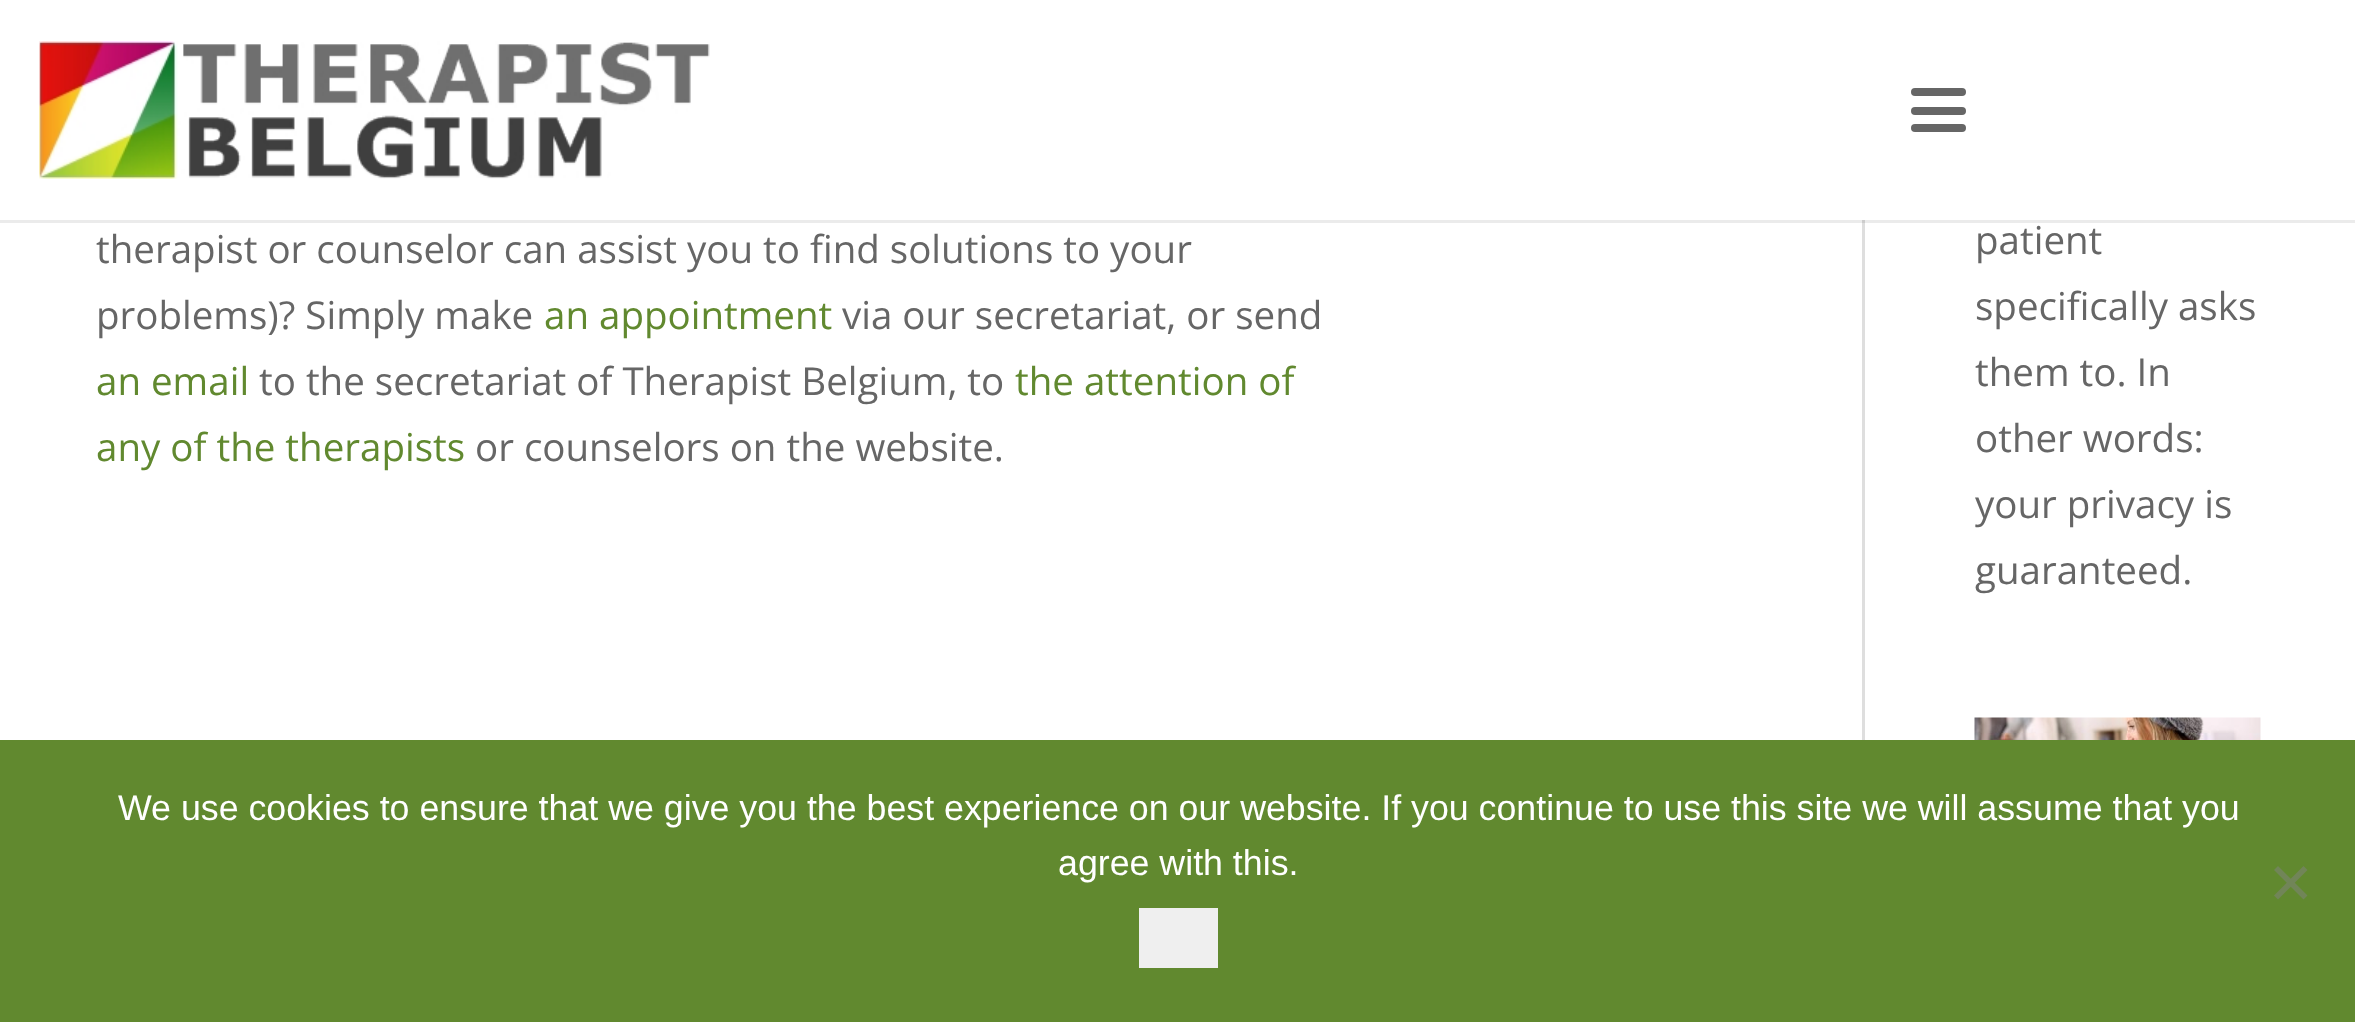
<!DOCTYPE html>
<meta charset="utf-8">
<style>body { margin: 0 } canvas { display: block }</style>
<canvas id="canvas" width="2355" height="1022"></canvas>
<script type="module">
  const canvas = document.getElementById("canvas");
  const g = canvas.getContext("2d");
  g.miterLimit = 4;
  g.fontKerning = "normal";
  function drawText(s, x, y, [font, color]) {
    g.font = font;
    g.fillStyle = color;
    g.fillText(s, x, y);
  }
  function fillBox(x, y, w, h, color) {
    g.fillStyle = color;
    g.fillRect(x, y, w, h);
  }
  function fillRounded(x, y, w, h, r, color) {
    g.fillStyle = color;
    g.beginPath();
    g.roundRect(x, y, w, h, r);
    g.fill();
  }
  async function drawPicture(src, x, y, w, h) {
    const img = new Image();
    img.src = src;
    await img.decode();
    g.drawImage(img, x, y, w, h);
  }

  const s1 = ["38.5px Open Sans", "#666666"];
  const s2 = ["38.5px Open Sans", "#61892F"];
  const s3 = ["35.75px Liberation Sans", "#FFFFFF"];

  fillBox(0, 0, 2355, 1022, "#FFFFFF");
  fillBox(1862, 220, 3, 520, "#DEDEDE");
  g.fillStyle = "rgba(0, 0, 0, 0.08)";
  g.beginPath();
  g.moveTo(0, 220);
  g.lineTo(0, 223);
  g.lineTo(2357, 223);
  g.lineTo(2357, 3);
  g.lineTo(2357, 220);
  g.closePath();
  g.fill();
  await drawPicture("pic1.png", 39, 41, 671, 138);
  fillRounded(1911, 107, 55, 8, 4, "#666666");
  fillRounded(1911, 88, 55, 8, 4, "#666666");
  fillRounded(1911, 124, 55, 8, 4, "#666666");
  drawText("therapist or counselor can assist you to find solutions to your", 96, 263, s1);
  drawText("problems)? Simply make", 96, 329, s1);
  drawText("an appointment", 544, 329, s2);
  drawText("via our secretariat, or send", 842, 329, s1);
  drawText("an email", 96, 395, s2);
  drawText("to the secretariat of Therapist Belgium, to", 259, 395, s1);
  drawText("the attention of", 1015, 395, s2);
  drawText("any of the therapists", 96, 461, s2);
  drawText("or counselors on the website.", 475, 461, s1);
  drawText("patient", 1975, 254, s1);
  drawText("specifically asks", 1975, 320, s1);
  drawText("them to. In", 1975, 386, s1);
  drawText("other words:", 1975, 452, s1);
  drawText("your privacy is", 1975, 518, s1);
  drawText("guaranteed.", 1975, 584, s1);
  await drawPicture("pic2.png", 1974, 717, 287, 23);
  fillBox(0, 740, 2355, 282, "#61892F");
  drawText("We use cookies to ensure that we give you the best experience on our website. If you continue to use this site we will assume that you", 118, 820, s3);
  drawText("agree with this.", 1058, 875, s3);
  g.fillStyle = "#718558";
  g.beginPath();
  g.moveTo(2303.5, 866);
  g.lineTo(2307.5, 870);
  g.lineTo(2278, 899.5);
  g.lineTo(2274, 895.5);
  g.closePath();
  g.fill();
  g.beginPath();
  g.moveTo(2274, 870);
  g.lineTo(2278, 866);
  g.lineTo(2307.5, 895.5);
  g.lineTo(2303.5, 899.5);
  g.closePath();
  g.fill();
  fillBox(1139, 908, 79, 60, "#EFEFEF");
</script>
